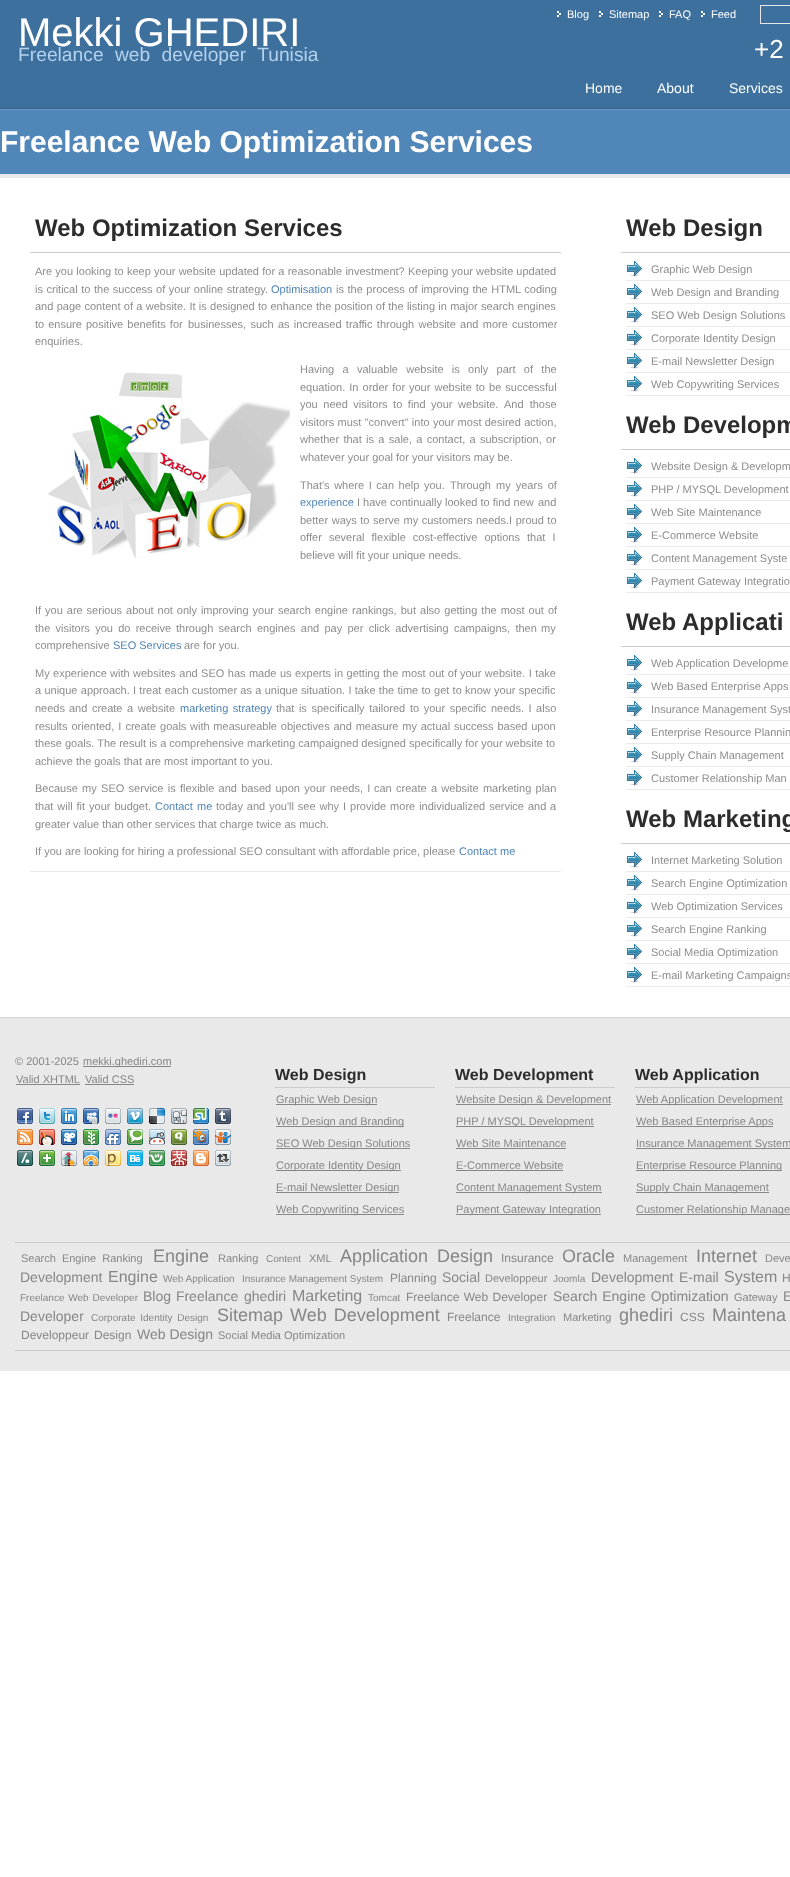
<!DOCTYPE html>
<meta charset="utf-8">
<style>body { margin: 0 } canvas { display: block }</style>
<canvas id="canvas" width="790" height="1877"></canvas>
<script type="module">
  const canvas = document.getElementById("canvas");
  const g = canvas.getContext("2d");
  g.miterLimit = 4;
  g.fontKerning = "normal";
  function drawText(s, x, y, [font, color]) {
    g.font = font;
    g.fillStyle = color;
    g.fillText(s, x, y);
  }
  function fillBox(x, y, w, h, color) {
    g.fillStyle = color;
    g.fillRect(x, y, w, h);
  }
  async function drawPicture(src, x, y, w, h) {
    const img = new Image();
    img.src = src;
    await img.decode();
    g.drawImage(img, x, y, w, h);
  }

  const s1 = ["11px Liberation Sans", "#FFFFFF"];
  const s2 = ["40px Liberation Sans", "#FFFFFF"];
  const s3 = ["19.25px Liberation Sans", "#B4D2EE"];
  const s4 = ["26px Liberation Sans", "#FFFFFF"];
  const s5 = ["14px Liberation Sans", "#FFFFFF"];
  const s6 = ["bold 30px Liberation Sans", "#FFFFFF"];
  const s7 = ["bold 24px Liberation Sans", "#2C2C2C"];
  const s8 = ["11px Liberation Sans", "#8D8D8D"];
  const s9 = ["11px Liberation Sans", "#5084B6"];
  const s10 = ["11px Liberation Sans", "#868686"];
  const s11 = ["bold 16px Liberation Sans", "#2C2C2C"];
  const s12 = ["18px Liberation Sans", "#868686"];
  const s13 = ["10px Liberation Sans", "#868686"];
  const s14 = ["12px Liberation Sans", "#868686"];
  const s15 = ["14px Liberation Sans", "#868686"];
  const s16 = ["16px Liberation Sans", "#868686"];

  fillBox(0, 0, 790, 1877, "#FFFFFF");
  await drawPicture("pic1.png", 0, 0, 790, 110);
  await drawPicture("pic2.png", 557, 11, 4, 6);
  drawText("Blog", 567, 18, s1);
  await drawPicture("pic2.png", 599, 11, 4, 6);
  drawText("Sitemap", 609, 18, s1);
  await drawPicture("pic2.png", 659, 11, 4, 6);
  drawText("FAQ", 669, 18, s1);
  await drawPicture("pic2.png", 701, 11, 4, 6);
  drawText("Feed", 711, 18, s1);
  drawText("Mekki GHEDIRI", 18, 46, s2);
  g.wordSpacing = "6px";
  drawText("Freelance web developer Tunisia", 18, 61, s3);
  fillBox(760, 5, 30, 1, "#E7E7E7");
  fillBox(760, 23, 30, 1, "#E7E7E7");
  fillBox(760, 5, 1, 19, "#E7E7E7");
  g.wordSpacing = "0px";
  drawText("+2", 754, 58, s4);
  drawText("Home", 585, 93, s5);
  drawText("About", 657, 93, s5);
  drawText("Services", 729, 93, s5);
  fillBox(0, 110, 790, 64, "#5186B8");
  drawText("Freelance Web Optimization Services", 0, 152, s6);
  fillBox(0, 174, 790, 4, "#E9E9E9");
  fillBox(30, 252, 531, 1, "#CCCCCC");
  drawText("Web Optimization Services", 35, 236, s7);
  g.wordSpacing = "0.2px";
  drawText("Are you looking to keep your website updated for a reasonable investment? Keeping your", 35, 275, s8);
  g.wordSpacing = "0px";
  drawText("website updated", 476, 275, s8);
  g.wordSpacing = "0.5px";
  drawText("is critical to the success of your online strategy.", 35, 293, s8);
  g.wordSpacing = "0px";
  drawText("Optimisation", 271, 293, s9);
  g.wordSpacing = "0.5px";
  drawText("is the process of improving the HTML coding", 336, 293, s8);
  g.wordSpacing = "0.25px";
  drawText("and page content of a website. It is designed to enhance the position of the listing in major search engines", 35, 310, s8);
  g.wordSpacing = "1px";
  drawText("to ensure positive benefits for", 35, 328, s8);
  g.wordSpacing = "1.25px";
  drawText("businesses, such as increased traffic through website and more customer", 188, 328, s8);
  g.wordSpacing = "0px";
  drawText("enquiries.", 35, 345, s8);
  await drawPicture("pic3.png", 48, 372, 242, 186);
  g.wordSpacing = "5.25px";
  drawText("Having a valuable website is only part of the", 300, 373, s8);
  g.wordSpacing = "1px";
  drawText("equation. In order for", 300, 391, s8);
  drawText("your website to be successful", 409, 391, s8);
  g.wordSpacing = "2.5px";
  drawText("you need visitors to find your website.", 300, 408, s8);
  g.wordSpacing = "3px";
  drawText("And those", 504, 408, s8);
  g.wordSpacing = "0.25px";
  drawText("visitors must \"convert\" into your most desired action,", 300, 426, s8);
  g.wordSpacing = "1.25px";
  drawText("whether that is a sale, a contact, a subscription, or", 300, 443, s8);
  g.wordSpacing = "0px";
  drawText("whatever your goal for your visitors may be.", 300, 461, s8);
  g.wordSpacing = "1.5px";
  drawText("That's where I can help you.", 300, 489, s8);
  g.wordSpacing = "2px";
  drawText("Through my years of", 450, 489, s8);
  g.wordSpacing = "0px";
  drawText("experience", 300, 506, s9);
  drawText("I have continually looked to find new", 357, 506, s8);
  drawText("and", 538, 506, s8);
  g.wordSpacing = "0.5px";
  drawText("better ways to serve my customers needs.I proud to", 300, 524, s8);
  g.wordSpacing = "0px";
  drawText("offer", 300, 541, s8);
  g.wordSpacing = "4px";
  drawText("several flexible cost-effective options that I", 329, 541, s8);
  g.wordSpacing = "0px";
  drawText("believe will fit your unique needs.", 300, 559, s8);
  g.wordSpacing = "0.9px";
  drawText("If you are serious about not only improving your search engine", 35, 614, s8);
  g.wordSpacing = "1px";
  drawText("rankings, but also getting the most out of", 352, 614, s8);
  g.wordSpacing = "2.25px";
  drawText("the visitors you do receive", 35, 632, s8);
  drawText("through search engines and pay per click advertising campaigns, then", 176, 632, s8);
  g.wordSpacing = "0px";
  drawText("my", 541, 632, s8);
  drawText("comprehensive", 35, 649, s8);
  drawText("SEO Services", 113, 649, s9);
  drawText("are for you.", 184, 649, s8);
  g.wordSpacing = "0.4px";
  drawText("My experience", 35, 677, s8);
  drawText("with websites and SEO has made us experts in getting the most out of", 110, 677, s8);
  drawText("your website. I take", 460, 677, s8);
  g.wordSpacing = "0.25px";
  drawText("a unique approach. I treat each customer as a unique situation. I take the time to get to know your specific", 35, 694, s8);
  g.wordSpacing = "0px";
  drawText("needs", 35, 712, s8);
  g.wordSpacing = "1.5px";
  drawText("and create a website", 69, 712, s8);
  drawText("marketing strategy", 180, 712, s9);
  drawText("that is specifically tailored", 276, 712, s8);
  drawText("to your specific needs. I also", 410, 712, s8);
  g.wordSpacing = "1px";
  drawText("results oriented, I create goals", 35, 730, s8);
  g.wordSpacing = "0.75px";
  drawText("with measureable objectives and measure my actual success based upon", 190, 730, s8);
  g.wordSpacing = "0px";
  drawText("these goals. The result is a comprehensive marketing campaigned designed specifically for your website to", 35, 747, s8);
  drawText("achieve the goals that are most important to you.", 35, 765, s8);
  g.wordSpacing = "1.25px";
  drawText("Because my SEO service is flexible and based upon your needs, I", 35, 792, s8);
  drawText("can create a website marketing plan", 374, 792, s8);
  g.wordSpacing = "0.9px";
  drawText("that will fit your budget.", 35, 810, s8);
  g.wordSpacing = "0px";
  drawText("Contact", 155, 810, s9);
  drawText("me", 197, 810, s9);
  g.wordSpacing = "0.9px";
  drawText("today and you'll see why I provide more individualized service and", 216, 810, s8);
  g.wordSpacing = "0px";
  drawText("a", 550, 810, s8);
  drawText("greater value than other services that charge twice as much.", 35, 828, s8);
  drawText("If you are looking for hiring a professional SEO consultant with affordable price, please", 35, 855, s8);
  drawText("Contact me", 459, 855, s9);
  fillBox(30, 871, 531, 1, "#EAEAEA");
  fillBox(621, 252, 169, 1, "#CCCCCC");
  drawText("Web Design", 626, 236, s7);
  await drawPicture("pic4.png", 627, 261, 15, 16);
  fillBox(626, 280, 164, 1, "#EAEAEA");
  drawText("Graphic Web Design", 651, 273, s8);
  await drawPicture("pic4.png", 627, 284, 15, 16);
  fillBox(626, 303, 164, 1, "#EAEAEA");
  drawText("Web Design and Branding", 651, 296, s8);
  await drawPicture("pic4.png", 627, 307, 15, 16);
  fillBox(626, 326, 164, 1, "#EAEAEA");
  drawText("SEO Web Design Solutions", 651, 319, s8);
  await drawPicture("pic4.png", 627, 330, 15, 16);
  fillBox(626, 349, 164, 1, "#EAEAEA");
  drawText("Corporate Identity Design", 651, 342, s8);
  await drawPicture("pic4.png", 627, 353, 15, 16);
  fillBox(626, 372, 164, 1, "#EAEAEA");
  drawText("E-mail Newsletter Design", 651, 365, s8);
  await drawPicture("pic4.png", 627, 376, 15, 16);
  fillBox(626, 395, 164, 1, "#EAEAEA");
  drawText("Web Copywriting Services", 651, 388, s8);
  fillBox(621, 449, 169, 1, "#CCCCCC");
  drawText("Web Developm", 626, 433, s7);
  await drawPicture("pic4.png", 627, 458, 15, 16);
  fillBox(626, 477, 164, 1, "#EAEAEA");
  drawText("Website Design & Developm", 651, 470, s8);
  await drawPicture("pic4.png", 627, 481, 15, 16);
  fillBox(626, 500, 164, 1, "#EAEAEA");
  drawText("PHP / MYSQL Development", 651, 493, s8);
  await drawPicture("pic4.png", 627, 504, 15, 16);
  fillBox(626, 523, 164, 1, "#EAEAEA");
  drawText("Web Site Maintenance", 651, 516, s8);
  await drawPicture("pic4.png", 627, 527, 15, 16);
  fillBox(626, 546, 164, 1, "#EAEAEA");
  drawText("E-Commerce Website", 651, 539, s8);
  await drawPicture("pic4.png", 627, 550, 15, 16);
  fillBox(626, 569, 164, 1, "#EAEAEA");
  drawText("Content Management Syste", 651, 562, s8);
  await drawPicture("pic4.png", 627, 573, 15, 16);
  fillBox(626, 592, 164, 1, "#EAEAEA");
  drawText("Payment Gateway Integratio", 651, 585, s8);
  fillBox(621, 646, 169, 1, "#CCCCCC");
  drawText("Web Applicati", 626, 630, s7);
  await drawPicture("pic4.png", 627, 655, 15, 16);
  fillBox(626, 674, 164, 1, "#EAEAEA");
  drawText("Web Application Developme", 651, 667, s8);
  await drawPicture("pic4.png", 627, 678, 15, 16);
  fillBox(626, 697, 164, 1, "#EAEAEA");
  drawText("Web Based Enterprise Apps", 651, 690, s8);
  await drawPicture("pic4.png", 627, 701, 15, 16);
  fillBox(626, 720, 164, 1, "#EAEAEA");
  drawText("Insurance Management Syst", 651, 713, s8);
  await drawPicture("pic4.png", 627, 724, 15, 16);
  fillBox(626, 743, 164, 1, "#EAEAEA");
  drawText("Enterprise Resource Plannin", 651, 736, s8);
  await drawPicture("pic4.png", 627, 747, 15, 16);
  fillBox(626, 766, 164, 1, "#EAEAEA");
  drawText("Supply Chain Management", 651, 759, s8);
  await drawPicture("pic4.png", 627, 770, 15, 16);
  fillBox(626, 789, 164, 1, "#EAEAEA");
  drawText("Customer Relationship Man", 651, 782, s8);
  fillBox(621, 843, 169, 1, "#CCCCCC");
  drawText("Web Marketing", 626, 827, s7);
  await drawPicture("pic4.png", 627, 852, 15, 16);
  fillBox(626, 871, 164, 1, "#EAEAEA");
  drawText("Internet Marketing Solution", 651, 864, s8);
  await drawPicture("pic4.png", 627, 875, 15, 16);
  fillBox(626, 894, 164, 1, "#EAEAEA");
  drawText("Search Engine Optimization", 651, 887, s8);
  await drawPicture("pic4.png", 627, 898, 15, 16);
  fillBox(626, 917, 164, 1, "#EAEAEA");
  drawText("Web Optimization Services", 651, 910, s8);
  await drawPicture("pic4.png", 627, 921, 15, 16);
  fillBox(626, 940, 164, 1, "#EAEAEA");
  drawText("Search Engine Ranking", 651, 933, s8);
  await drawPicture("pic4.png", 627, 944, 15, 16);
  fillBox(626, 963, 164, 1, "#EAEAEA");
  drawText("Social Media Optimization", 651, 956, s8);
  await drawPicture("pic4.png", 627, 967, 15, 16);
  fillBox(626, 986, 164, 1, "#EAEAEA");
  drawText("E-mail Marketing Campaigns", 651, 979, s8);
  fillBox(0, 1018, 790, 353, "#E9E9E9");
  fillBox(0, 1017, 790, 1, "#D4D4D4");
  drawText("© 2001-2025", 15, 1065, s10);
  fillBox(83, 1066, 88, 1, "#868686");
  drawText("mekki.ghediri.com", 83, 1065, s10);
  drawText("Valid XHTML", 16, 1083, s10);
  fillBox(16, 1084, 64, 1, "#868686");
  drawText("Valid CSS", 85, 1083, s10);
  fillBox(85, 1084, 49, 1, "#868686");
  fillBox(275, 1087, 160, 1, "#CCCCCC");
  drawText("Web Design", 275, 1080, s11);
  fillBox(276, 1104, 101, 1, "#868686");
  drawText("Graphic Web Design", 276, 1103, s10);
  fillBox(276, 1126, 128, 1, "#868686");
  drawText("Web Design and Branding", 276, 1125, s10);
  fillBox(276, 1148, 134, 1, "#868686");
  drawText("SEO Web Design Solutions", 276, 1147, s10);
  fillBox(276, 1170, 125, 1, "#868686");
  drawText("Corporate Identity Design", 276, 1169, s10);
  fillBox(276, 1192, 123, 1, "#868686");
  drawText("E-mail Newsletter Design", 276, 1191, s10);
  fillBox(276, 1214, 128, 1, "#868686");
  drawText("Web Copywriting Services", 276, 1213, s10);
  fillBox(455, 1087, 160, 1, "#CCCCCC");
  drawText("Web Development", 455, 1080, s11);
  fillBox(456, 1104, 155, 1, "#868686");
  drawText("Website Design & Development", 456, 1103, s10);
  fillBox(456, 1126, 138, 1, "#868686");
  drawText("PHP / MYSQL Development", 456, 1125, s10);
  drawText("Web Site Maintenance", 456, 1147, s10);
  fillBox(456, 1148, 110, 1, "#868686");
  drawText("E-Commerce Website", 456, 1169, s10);
  fillBox(456, 1170, 107, 1, "#868686");
  fillBox(456, 1192, 146, 1, "#868686");
  drawText("Content Management System", 456, 1191, s10);
  fillBox(456, 1214, 145, 1, "#868686");
  drawText("Payment Gateway Integration", 456, 1213, s10);
  fillBox(635, 1087, 155, 1, "#CCCCCC");
  drawText("Web Application", 635, 1080, s11);
  fillBox(636, 1104, 147, 1, "#868686");
  drawText("Web Application Development", 636, 1103, s10);
  fillBox(636, 1126, 137, 1, "#868686");
  drawText("Web Based Enterprise Apps", 636, 1125, s10);
  fillBox(636, 1148, 154, 1, "#868686");
  drawText("Insurance Management System", 636, 1147, s10);
  fillBox(636, 1170, 146, 1, "#868686");
  drawText("Enterprise Resource Planning", 636, 1169, s10);
  fillBox(636, 1192, 133, 1, "#868686");
  drawText("Supply Chain Management", 636, 1191, s10);
  fillBox(636, 1214, 154, 1, "#868686");
  drawText("Customer Relationship Manage", 636, 1213, s10);
  await drawPicture("pic5.png", 17, 1108, 16, 16);
  await drawPicture("pic6.png", 39, 1108, 16, 16);
  await drawPicture("pic7.png", 61, 1108, 16, 16);
  await drawPicture("pic8.png", 83, 1108, 16, 16);
  await drawPicture("pic9.png", 105, 1108, 16, 16);
  await drawPicture("pic10.png", 127, 1108, 16, 16);
  await drawPicture("pic11.png", 149, 1108, 16, 16);
  await drawPicture("pic12.png", 171, 1108, 16, 16);
  await drawPicture("pic13.png", 193, 1108, 16, 16);
  await drawPicture("pic14.png", 215, 1108, 16, 16);
  await drawPicture("pic15.png", 17, 1129, 16, 16);
  await drawPicture("pic16.png", 39, 1129, 16, 16);
  await drawPicture("pic17.png", 61, 1129, 16, 16);
  await drawPicture("pic18.png", 83, 1129, 16, 16);
  await drawPicture("pic19.png", 105, 1129, 16, 16);
  await drawPicture("pic20.png", 127, 1129, 16, 16);
  await drawPicture("pic21.png", 149, 1129, 16, 16);
  await drawPicture("pic22.png", 171, 1129, 16, 16);
  await drawPicture("pic23.png", 193, 1129, 16, 16);
  await drawPicture("pic24.png", 215, 1129, 16, 16);
  await drawPicture("pic25.png", 17, 1150, 16, 16);
  await drawPicture("pic26.png", 39, 1150, 16, 16);
  await drawPicture("pic27.png", 61, 1150, 16, 16);
  await drawPicture("pic28.png", 83, 1150, 16, 16);
  await drawPicture("pic29.png", 105, 1150, 16, 16);
  await drawPicture("pic30.png", 127, 1150, 16, 16);
  await drawPicture("pic31.png", 149, 1150, 16, 16);
  await drawPicture("pic32.png", 171, 1150, 16, 16);
  await drawPicture("pic33.png", 193, 1150, 16, 16);
  await drawPicture("pic34.png", 215, 1150, 16, 16);
  fillBox(15, 1242, 775, 1, "#CCCCCC");
  fillBox(15, 1350, 775, 1, "#CCCCCC");
  g.wordSpacing = "3px";
  drawText("Search Engine Ranking", 21, 1262, s10);
  g.wordSpacing = "0px";
  drawText("Engine", 153, 1262, s12);
  drawText("Ranking", 218, 1262, s10);
  drawText("Content", 266, 1262, s13);
  drawText("XML", 309, 1262, s10);
  drawText("Application", 340, 1262, s12);
  drawText("Design", 437, 1262, s12);
  drawText("Insurance", 501, 1262, s14);
  drawText("Oracle", 562, 1262, s12);
  drawText("Management", 623, 1262, s10);
  drawText("Internet", 696, 1262, s12);
  drawText("Deve", 765, 1262, s10);
  drawText("Development", 20, 1282, s15);
  drawText("Engine", 108, 1282, s16);
  drawText("Web Application", 163, 1282, s13);
  drawText("Insurance Management System", 242, 1282, s13);
  drawText("Planning", 390, 1282, s14);
  drawText("Social", 442, 1282, s15);
  drawText("Developpeur", 485, 1282, s10);
  drawText("Joomla", 553, 1282, s13);
  drawText("Development", 591, 1282, s15);
  drawText("E-mail", 679, 1282, s15);
  drawText("System", 724, 1282, s16);
  drawText("H", 782, 1282, s14);
  g.wordSpacing = "1px";
  drawText("Freelance Web Developer", 20, 1301, s13);
  drawText("Blog Freelance", 143, 1301, s15);
  g.wordSpacing = "0px";
  drawText("ghediri", 244, 1301, s15);
  drawText("Marketing", 292, 1301, s16);
  drawText("Tomcat", 368, 1301, s13);
  g.wordSpacing = "1px";
  drawText("Freelance Web Developer", 406, 1301, s14);
  drawText("Search Engine Optimization", 553, 1301, s15);
  g.wordSpacing = "0px";
  drawText("Gateway", 734, 1301, s10);
  g.wordSpacing = "1px";
  drawText("E", 783, 1301, s15);
  g.wordSpacing = "0px";
  drawText("Developer", 20, 1321, s15);
  g.wordSpacing = "2px";
  drawText("Corporate Identity Design", 91, 1321, s13);
  drawText("Sitemap Web Development", 217, 1321, s12);
  g.wordSpacing = "0px";
  drawText("Freelance", 447, 1321, s14);
  drawText("Integration", 508, 1321, s13);
  drawText("Marketing", 563, 1321, s10);
  drawText("ghediri", 619, 1321, s12);
  drawText("CSS", 680, 1321, s14);
  drawText("Maintena", 712, 1321, s12);
  drawText("Developpeur", 21, 1339, s14);
  drawText("Design", 94, 1339, s14);
  drawText("Web Design", 137, 1339, s15);
  drawText("Social Media Optimization", 218, 1339, s10);
</script>
